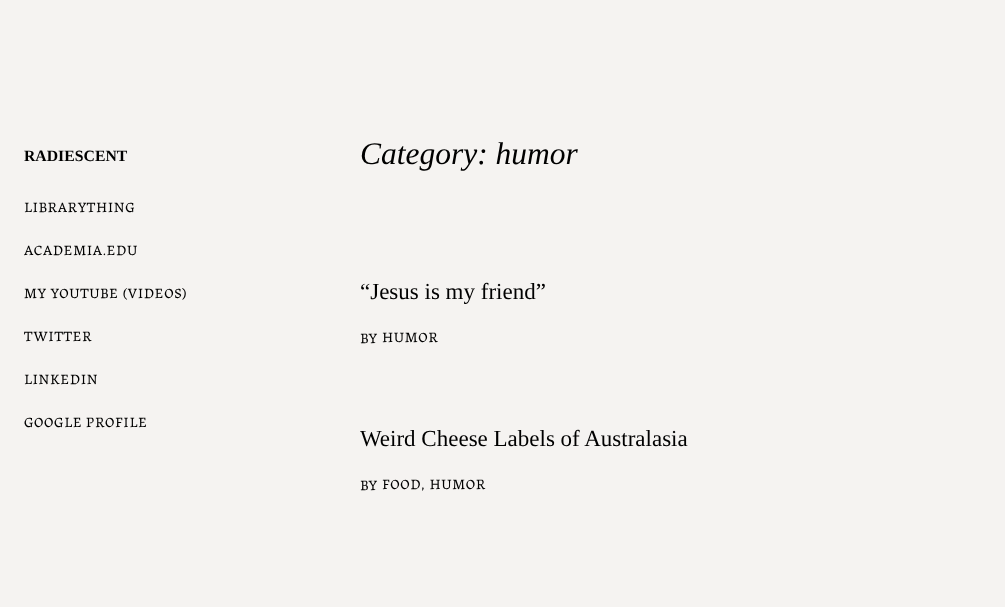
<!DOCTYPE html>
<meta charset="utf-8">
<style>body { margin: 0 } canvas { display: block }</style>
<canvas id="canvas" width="1005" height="607"></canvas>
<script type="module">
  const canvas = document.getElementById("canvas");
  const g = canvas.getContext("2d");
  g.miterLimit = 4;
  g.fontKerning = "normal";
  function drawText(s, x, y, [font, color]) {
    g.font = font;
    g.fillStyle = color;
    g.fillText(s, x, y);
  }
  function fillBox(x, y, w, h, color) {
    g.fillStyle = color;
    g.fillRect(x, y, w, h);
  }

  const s1 = ["bold 15.75px Liberation Serif", "#000000"];
  const s2 = ["14.4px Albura", "#000000"];
  const s3 = ["italic 31.5px Liberation Serif", "#000000"];
  const s4 = ["23px Liberation Serif", "#000000"];

  fillBox(0, 0, 1005, 607, "#F5F3F1");
  drawText("RADIESCENT", 24, 161, s1);
  g.letterSpacing = "0.6px";
  drawText("LIBRARYTHING", 24, 212, s2);
  drawText("ACADEMIA.EDU", 24, 255, s2);
  drawText("MY YOUTUBE (VIDEOS)", 24, 298, s2);
  drawText("TWITTER", 24, 341, s2);
  drawText("LINKEDIN", 24, 384, s2);
  drawText("GOOGLE PROFILE", 24, 427, s2);
  g.letterSpacing = "0px";
  drawText("Category: humor", 360, 164, s3);
  drawText("“Jesus is my friend”", 360, 299, s4);
  drawText("BY", 360, 343, s2);
  g.letterSpacing = "0.6px";
  drawText("HUMOR", 382, 342, s2);
  g.letterSpacing = "0px";
  drawText("Weird Cheese Labels of Australasia", 360, 446, s4);
  drawText("BY", 360, 490, s2);
  g.letterSpacing = "0.6px";
  drawText("FOOD, HUMOR", 382, 489, s2);
</script>
